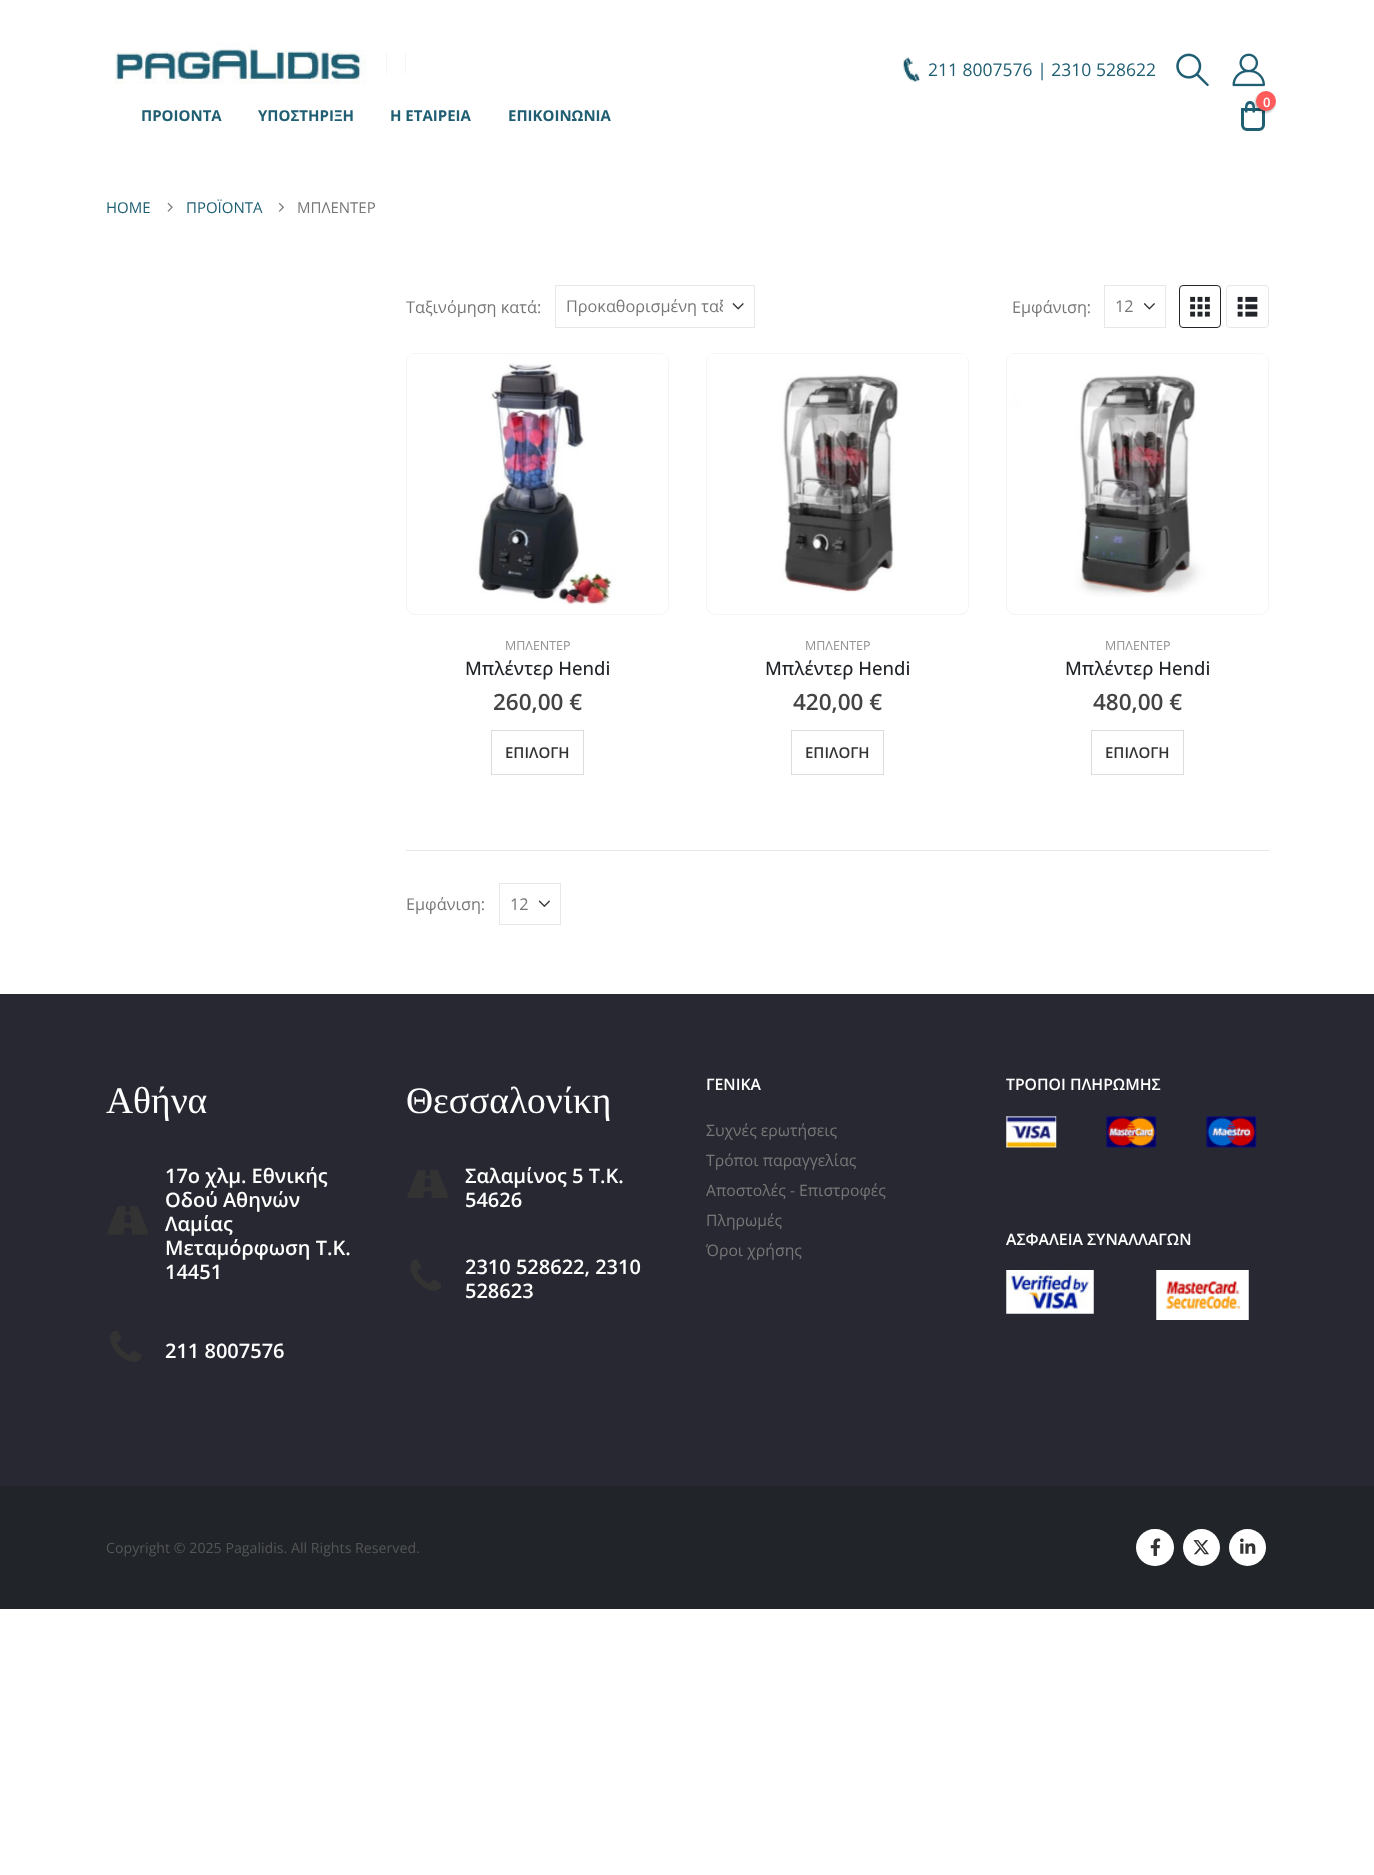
<!DOCTYPE html>
<meta charset="utf-8">
<style>body { margin: 0 } canvas { display: block }</style>
<canvas id="canvas" width="1374" height="1875"></canvas>
<script type="module">
  const canvas = document.getElementById("canvas");
  const g = canvas.getContext("2d");
  g.miterLimit = 4;
  g.fontKerning = "normal";
  function drawText(s, x, y, [font, color]) {
    g.font = font;
    g.fillStyle = color;
    g.fillText(s, x, y);
  }
  function fillBox(x, y, w, h, color) {
    g.fillStyle = color;
    g.fillRect(x, y, w, h);
  }
  function fillRounded(x, y, w, h, r, color) {
    g.fillStyle = color;
    g.beginPath();
    g.roundRect(x, y, w, h, r);
    g.fill();
  }
  async function drawPicture(src, x, y, w, h) {
    const img = new Image();
    img.src = src;
    await img.decode();
    g.drawImage(img, x, y, w, h);
  }

  const s1 = ["17.5px Open Sans", "#205F73"];
  const s2 = ["600 13px Open Sans", "#FFFFFF"];
  const s3 = ["bold 15px Open Sans", "#205F73"];
  const s4 = ["15px Open Sans", "#205F73"];
  const s5 = ["15px Open Sans", "#777777"];
  const s6 = ["16.25px Open Sans", "#777777"];
  const s7 = ["12.5px Open Sans", "#929292"];
  const s8 = ["500 18.5px Open Sans", "#212529"];
  const s9 = ["600 22.5px Open Sans", "#444444"];
  const s10 = ["600 15px Open Sans", "#333333"];
  const s11 = ["37.5px Liberation Serif", "#FFFFFF"];
  const s12 = ["600 20px Open Sans", "#FFFFFF"];
  const s13 = ["600 15.75px Open Sans", "#FFFFFF"];
  const s14 = ["15.75px Open Sans", "#777777"];
  const s15 = ["14.2px Open Sans", "#555555"];

  fillBox(0, 0, 1374, 1875, "#FFFFFF");
  await drawPicture("pic1.png", 903, 57, 18, 25);
  drawText("211 8007576 | 2310 528622", 928, 76, s1);
  await drawPicture("pic2.png", 1176, 53, 33, 34);
  await drawPicture("pic3.png", 1232, 53, 33, 34);
  g.beginPath();
  g.roundRect(1242.5, 109.5, 21, 20, [0, 0, 4.5, 4.5]);
  g.strokeStyle = "#205F73";
  g.lineWidth = 3;
  g.stroke();
  g.beginPath();
  g.moveTo(1250, 101);
  g.bezierCurveTo(1256, 101, 1255, 108.5, 1255, 112.5);
  g.lineTo(1245, 112.5);
  g.bezierCurveTo(1245, 108.5, 1244, 101, 1250, 101);
  g.closePath();
  g.moveTo(1250, 104);
  g.bezierCurveTo(1253.5, 104, 1252.5, 110, 1252.5, 112.5);
  g.lineTo(1247.5, 112.5);
  g.bezierCurveTo(1247.5, 110, 1246.5, 104, 1250, 104);
  g.closePath();
  g.fill("evenodd");
  g.fillStyle = "rgba(0, 0, 0, 0.3)";
  g.filter = "blur(1px)";
  g.beginPath();
  g.roundRect(1255, 93, 20, 20, 10);
  g.fill();
  g.filter = "none";
  g.fillStyle = "#FF5B5B";
  g.beginPath();
  g.arc(1266, 101, 10, 0, Math.PI * 2);
  g.fill();
  drawText("0", 1263, 107, s2);
  await drawPicture("pic4.png", 114, 42, 253, 42);
  fillBox(386, 53, 1, 21, "#F5F5F5");
  fillBox(405, 53, 1, 21, "#F5F5F5");
  drawText("ΠΡΟΙΟΝΤΑ", 141, 121, s3);
  drawText("ΥΠΟΣΤΗΡΙΞΗ", 258, 121, s3);
  drawText("Η ΕΤΑΙΡΕΙΑ", 390, 121, s3);
  drawText("ΕΠΙΚΟΙΝΩΝΙΑ", 508, 121, s3);
  drawText("HOME", 106, 213, s4);
  await drawPicture("pic5.png", 167, 202, 6, 10);
  drawText("ΠΡΟΪΟΝΤΑ", 186, 213, s4);
  await drawPicture("pic6.png", 278, 202, 6, 10);
  drawText("ΜΠΛΕΝΤΕΡ", 297, 213, s5);
  drawText("Ταξινόμηση κατά:", 406, 313, s6);
  await drawPicture("pic7.png", 732, 303, 12, 7);
  g.strokeStyle = "#E7E7E7";
  g.lineWidth = 1;
  g.strokeRect(555.5, 285.5, 199, 42);
  g.save();
  g.beginPath();
  g.rect(566, 295, 157, 23);
  g.clip();
  drawText("Προκαθορισμένη ταξ", 566, 312, s6);
  g.restore();
  drawText("Εμφάνιση:", 1012, 313, s6);
  await drawPicture("pic8.png", 1143, 303, 12, 7);
  g.strokeRect(1104.5, 285.5, 61, 42);
  drawText("12", 1115, 312, s6);
  g.beginPath();
  g.roundRect(1179.5, 285.5, 41, 42, 3.5);
  g.strokeStyle = "#222529";
  g.stroke();
  await drawPicture("pic9.png", 1190, 296, 20, 21);
  g.beginPath();
  g.roundRect(1226.5, 285.5, 42, 42, 3.5);
  g.strokeStyle = "#E7E7E7";
  g.stroke();
  await drawPicture("pic10.png", 1237, 296, 21, 21);
  g.beginPath();
  g.roundRect(406.5, 353.5, 262, 261, 8.5);
  g.strokeStyle = "#F4F4F4";
  g.stroke();
  await drawPicture("pic11.png", 408, 354, 259, 251);
  drawText("ΜΠΛΕΝΤΕΡ", 505, 650, s7);
  drawText("Μπλέντερ Hendi", 465, 675, s8);
  drawText("260,00 €", 493, 710, s9);
  g.strokeStyle = "#DDDDDD";
  g.strokeRect(491.5, 730.5, 92, 44);
  drawText("ΕΠΙΛΟΓΗ", 505, 758, s10);
  g.beginPath();
  g.roundRect(706.5, 353.5, 262, 261, 8.5);
  g.strokeStyle = "#F4F4F4";
  g.stroke();
  await drawPicture("pic12.png", 708, 354, 259, 239);
  drawText("ΜΠΛΕΝΤΕΡ", 805, 650, s7);
  drawText("Mπλέντερ Hendi", 765, 675, s8);
  drawText("420,00 €", 793, 710, s9);
  g.strokeStyle = "#DDDDDD";
  g.strokeRect(791.5, 730.5, 92, 44);
  drawText("ΕΠΙΛΟΓΗ", 805, 758, s10);
  g.beginPath();
  g.roundRect(1006.5, 353.5, 262, 261, 8.5);
  g.strokeStyle = "#F4F4F4";
  g.stroke();
  await drawPicture("pic13.png", 1008, 354, 259, 243);
  drawText("ΜΠΛΕΝΤΕΡ", 1105, 650, s7);
  drawText("Μπλέντερ Hendi", 1065, 675, s8);
  drawText("480,00 €", 1093, 710, s9);
  g.strokeStyle = "#DDDDDD";
  g.strokeRect(1091.5, 730.5, 92, 44);
  drawText("ΕΠΙΛΟΓΗ", 1105, 758, s10);
  fillBox(406, 850, 863, 1, "#E7E7E7");
  drawText("Εμφάνιση:", 406, 910, s6);
  await drawPicture("pic14.png", 538, 900, 12, 8);
  g.strokeStyle = "#E7E7E7";
  g.strokeRect(499.5, 883.5, 61, 41);
  drawText("12", 510, 910, s6);
  fillBox(0, 994, 1374, 492, "#282833");
  drawText("Αθήνα", 106, 1113, s11);
  await drawPicture("pic15.png", 107, 1206, 41, 29);
  drawText("17ο χλμ. Εθνικής", 165, 1183, s12);
  drawText("Οδού Αθηνών", 165, 1207, s12);
  drawText("Λαμίας", 165, 1231, s12);
  drawText("Μεταμόρφωση Τ.Κ.", 165, 1255, s12);
  drawText("14451", 165, 1279, s12);
  await drawPicture("pic16.png", 110, 1331, 32, 31);
  drawText("211 8007576", 165, 1358, s12);
  drawText("Θεσσαλονίκη", 406, 1113, s11);
  await drawPicture("pic17.png", 407, 1170, 41, 28);
  drawText("Σαλαμίνος 5 Τ.Κ.", 465, 1183, s12);
  drawText("54626", 465, 1207, s12);
  await drawPicture("pic18.png", 410, 1259, 31, 32);
  drawText("2310 528622, 2310", 465, 1274, s12);
  drawText("528623", 465, 1298, s12);
  drawText("ΓΕΝΙΚΑ", 706, 1090, s13);
  drawText("Συχνές ερωτήσεις", 706, 1136, s14);
  drawText("Τρόποι παραγγελίας", 706, 1166, s14);
  drawText("Αποστολές - Επιστροφές", 706, 1196, s14);
  drawText("Πληρωμές", 706, 1226, s14);
  drawText("Όροι χρήσης", 706, 1256, s14);
  drawText("ΤΡΟΠΟΙ ΠΛΗΡΩΜΗΣ", 1006, 1090, s13);
  await drawPicture("pic19.png", 1006, 1116, 51, 32);
  await drawPicture("pic20.png", 1106, 1116, 51, 32);
  await drawPicture("pic21.png", 1206, 1116, 51, 32);
  drawText("ΑΣΦΑΛΕΙΑ ΣΥΝΑΛΛΑΓΩΝ", 1006, 1245, s13);
  await drawPicture("pic22.png", 1006, 1270, 88, 44);
  await drawPicture("pic23.png", 1156, 1270, 93, 50);
  fillBox(0, 1486, 1374, 123, "#212529");
  drawText("Copyright © 2025 Pagalidis. All Rights Reserved.", 106, 1553, s15);
  fillRounded(1136, 1529, 38, 37, 18.5, "#FFFFFF");
  await drawPicture("pic24.png", 1150, 1538, 11, 18);
  g.beginPath();
  g.arc(1201.5, 1547.5, 18.5, 0, Math.PI * 2);
  g.fill();
  await drawPicture("pic25.png", 1193, 1540, 16, 15);
  g.beginPath();
  g.arc(1247.5, 1547.5, 18.5, 0, Math.PI * 2);
  g.fill();
  await drawPicture("pic26.png", 1240, 1538, 16, 16);
</script>
